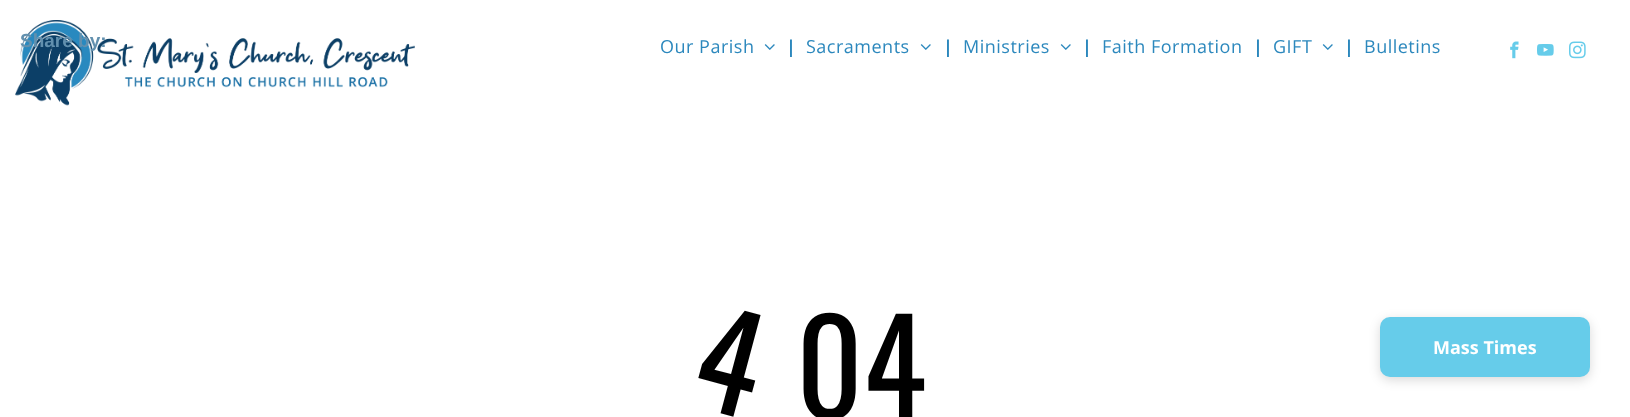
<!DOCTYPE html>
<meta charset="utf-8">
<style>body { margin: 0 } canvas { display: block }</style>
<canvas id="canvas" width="1630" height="417"></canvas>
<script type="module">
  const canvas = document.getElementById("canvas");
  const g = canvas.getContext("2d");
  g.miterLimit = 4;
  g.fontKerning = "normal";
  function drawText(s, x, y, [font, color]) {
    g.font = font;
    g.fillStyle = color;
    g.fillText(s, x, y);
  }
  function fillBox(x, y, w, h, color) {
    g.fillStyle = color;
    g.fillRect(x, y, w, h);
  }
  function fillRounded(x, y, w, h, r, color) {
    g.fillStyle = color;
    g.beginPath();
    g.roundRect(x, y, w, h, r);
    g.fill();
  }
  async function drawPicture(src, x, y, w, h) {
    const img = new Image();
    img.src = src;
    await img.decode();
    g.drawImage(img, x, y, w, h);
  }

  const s1 = ["bold 19px Liberation Sans", "#6290AE"];
  const s2 = ["18px Open Sans", "#2C88BD"];
  const s3 = ["bold 18px Open Sans", "#2C88BD"];
  const s4 = ["130px Oswald", "#000000"];
  const s5 = ["bold 18px Open Sans", "#FFFFFF"];

  fillBox(0, 0, 1630, 417, "#FFFFFF");
  await drawPicture("pic1.png", 15, 20, 400, 86);
  drawText("Share by:", 20, 47, s1);
  g.letterSpacing = "0.5px";
  drawText("Our Parish", 660, 53, s2);
  await drawPicture("pic2.png", 764, 44, 11, 6);
  g.letterSpacing = "0px";
  drawText("|", 786, 53, s3);
  g.letterSpacing = "0.5px";
  drawText("Sacraments", 806, 53, s2);
  await drawPicture("pic2.png", 920, 44, 11, 6);
  g.letterSpacing = "0px";
  drawText("|", 943, 53, s3);
  g.letterSpacing = "0.5px";
  drawText("Ministries", 963, 53, s2);
  await drawPicture("pic2.png", 1060, 44, 11, 6);
  g.letterSpacing = "0px";
  drawText("|", 1082, 53, s3);
  g.letterSpacing = "0.5px";
  drawText("Faith Formation", 1102, 53, s2);
  g.letterSpacing = "0px";
  drawText("|", 1253, 53, s3);
  g.letterSpacing = "0.5px";
  drawText("GIFT", 1273, 53, s2);
  await drawPicture("pic2.png", 1322, 44, 11, 6);
  g.letterSpacing = "0px";
  drawText("|", 1344, 53, s3);
  g.letterSpacing = "0.5px";
  drawText("Bulletins", 1364, 53, s2);
  await drawPicture("pic3.png", 1510, 41, 9, 18);
  await drawPicture("pic4.png", 1537, 44, 17, 12);
  await drawPicture("pic5.png", 1569, 41, 17, 18);
  g.letterSpacing = "0px";
  g.font = "130px Oswald";
  g.fillStyle = "#000000";
  g.save();
  g.translate(686, 404);
  g.rotate(15 * Math.PI / 180);
  g.fillText("4", 0, 0);
  g.restore();
  drawText("04", 796, 419, s4);
  g.fillStyle = "rgba(0, 0, 0, 0.15)";
  g.filter = "blur(5.5px)";
  g.beginPath();
  g.roundRect(1380, 320, 210, 60, 10);
  g.fill();
  g.filter = "none";
  fillRounded(1380, 317, 210, 60, 10, "#66CCEA");
  drawText("Mass Times", 1433, 354, s5);
</script>
